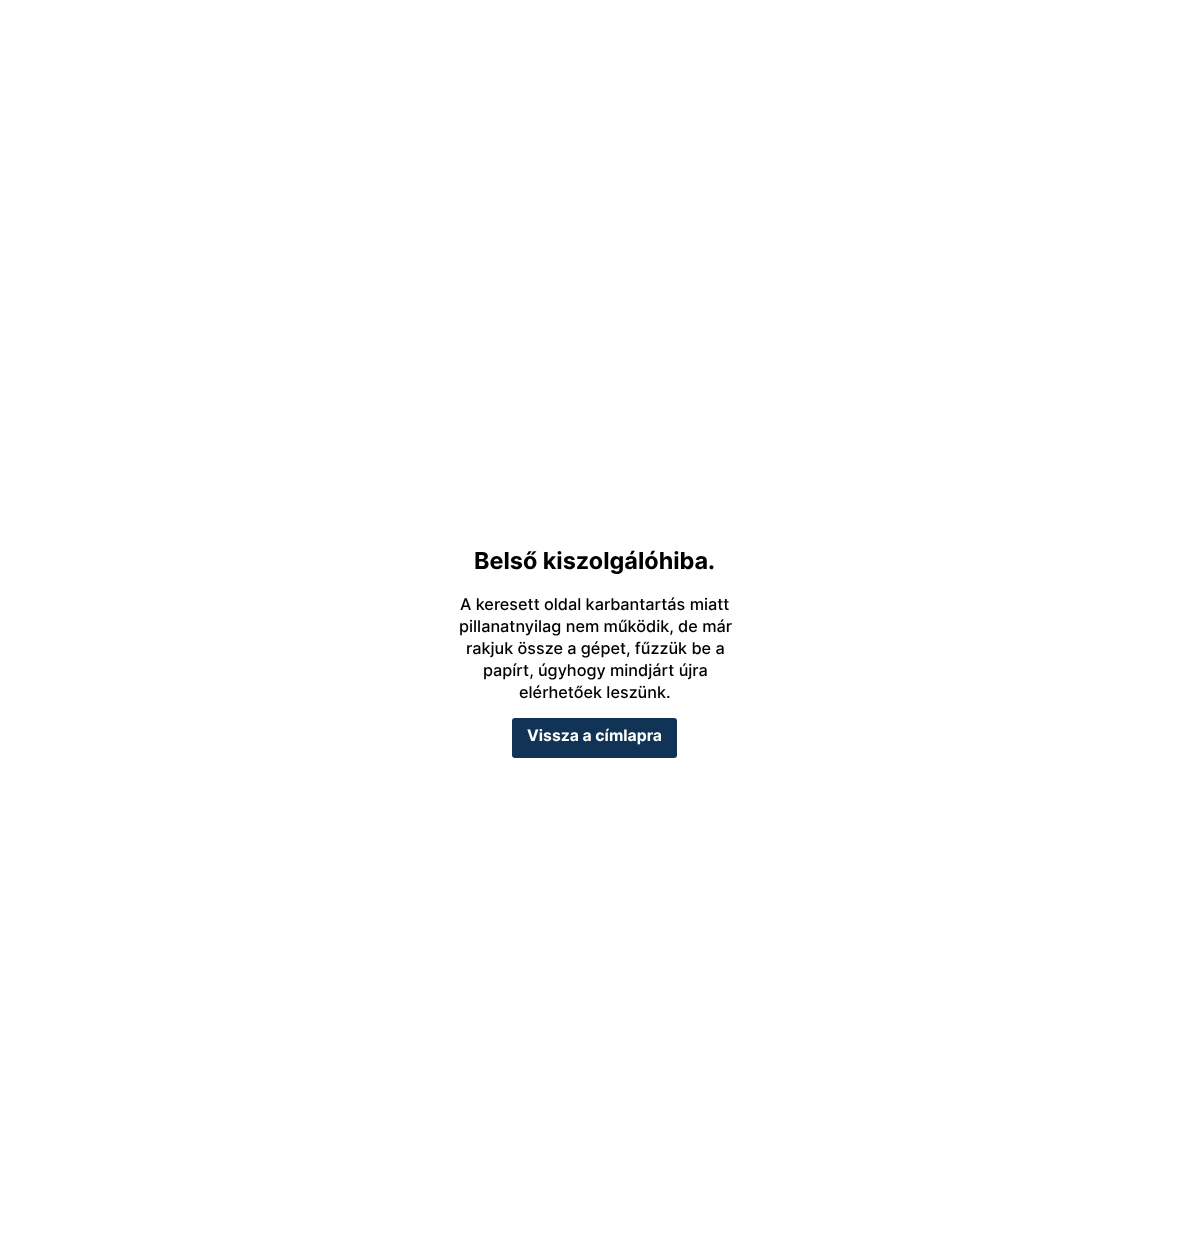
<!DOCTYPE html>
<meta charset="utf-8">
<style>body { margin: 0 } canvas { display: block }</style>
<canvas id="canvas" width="1189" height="1259"></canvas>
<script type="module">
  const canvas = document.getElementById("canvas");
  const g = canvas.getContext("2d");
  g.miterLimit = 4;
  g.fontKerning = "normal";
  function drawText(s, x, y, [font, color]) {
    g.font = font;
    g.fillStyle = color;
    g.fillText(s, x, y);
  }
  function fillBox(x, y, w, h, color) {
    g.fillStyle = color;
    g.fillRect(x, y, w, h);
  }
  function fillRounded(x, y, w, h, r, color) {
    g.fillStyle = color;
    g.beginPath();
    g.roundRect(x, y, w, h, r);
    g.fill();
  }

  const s1 = ["bold 23.4px Inter", "#000000"];
  const s2 = ["500 16.25px Inter", "#000000"];
  const s3 = ["bold 15.75px Inter", "#FFFFFF"];

  fillBox(0, 0, 1189, 1259, "#FFFFFF");
  drawText("Belső kiszolgálóhiba.", 474, 569, s1);
  drawText("A keresett oldal karbantartás miatt", 460, 610, s2);
  drawText("pillanatnyilag nem működik, de már", 459, 632, s2);
  drawText("rakjuk össze a gépet, fűzzük be a", 466, 654, s2);
  drawText("papírt, úgyhogy mindjárt újra", 483, 676, s2);
  drawText("elérhetőek leszünk.", 519, 698, s2);
  fillRounded(512, 718, 165, 40, 3, "#113355");
  drawText("Vissza a címlapra", 527, 741, s3);
</script>
